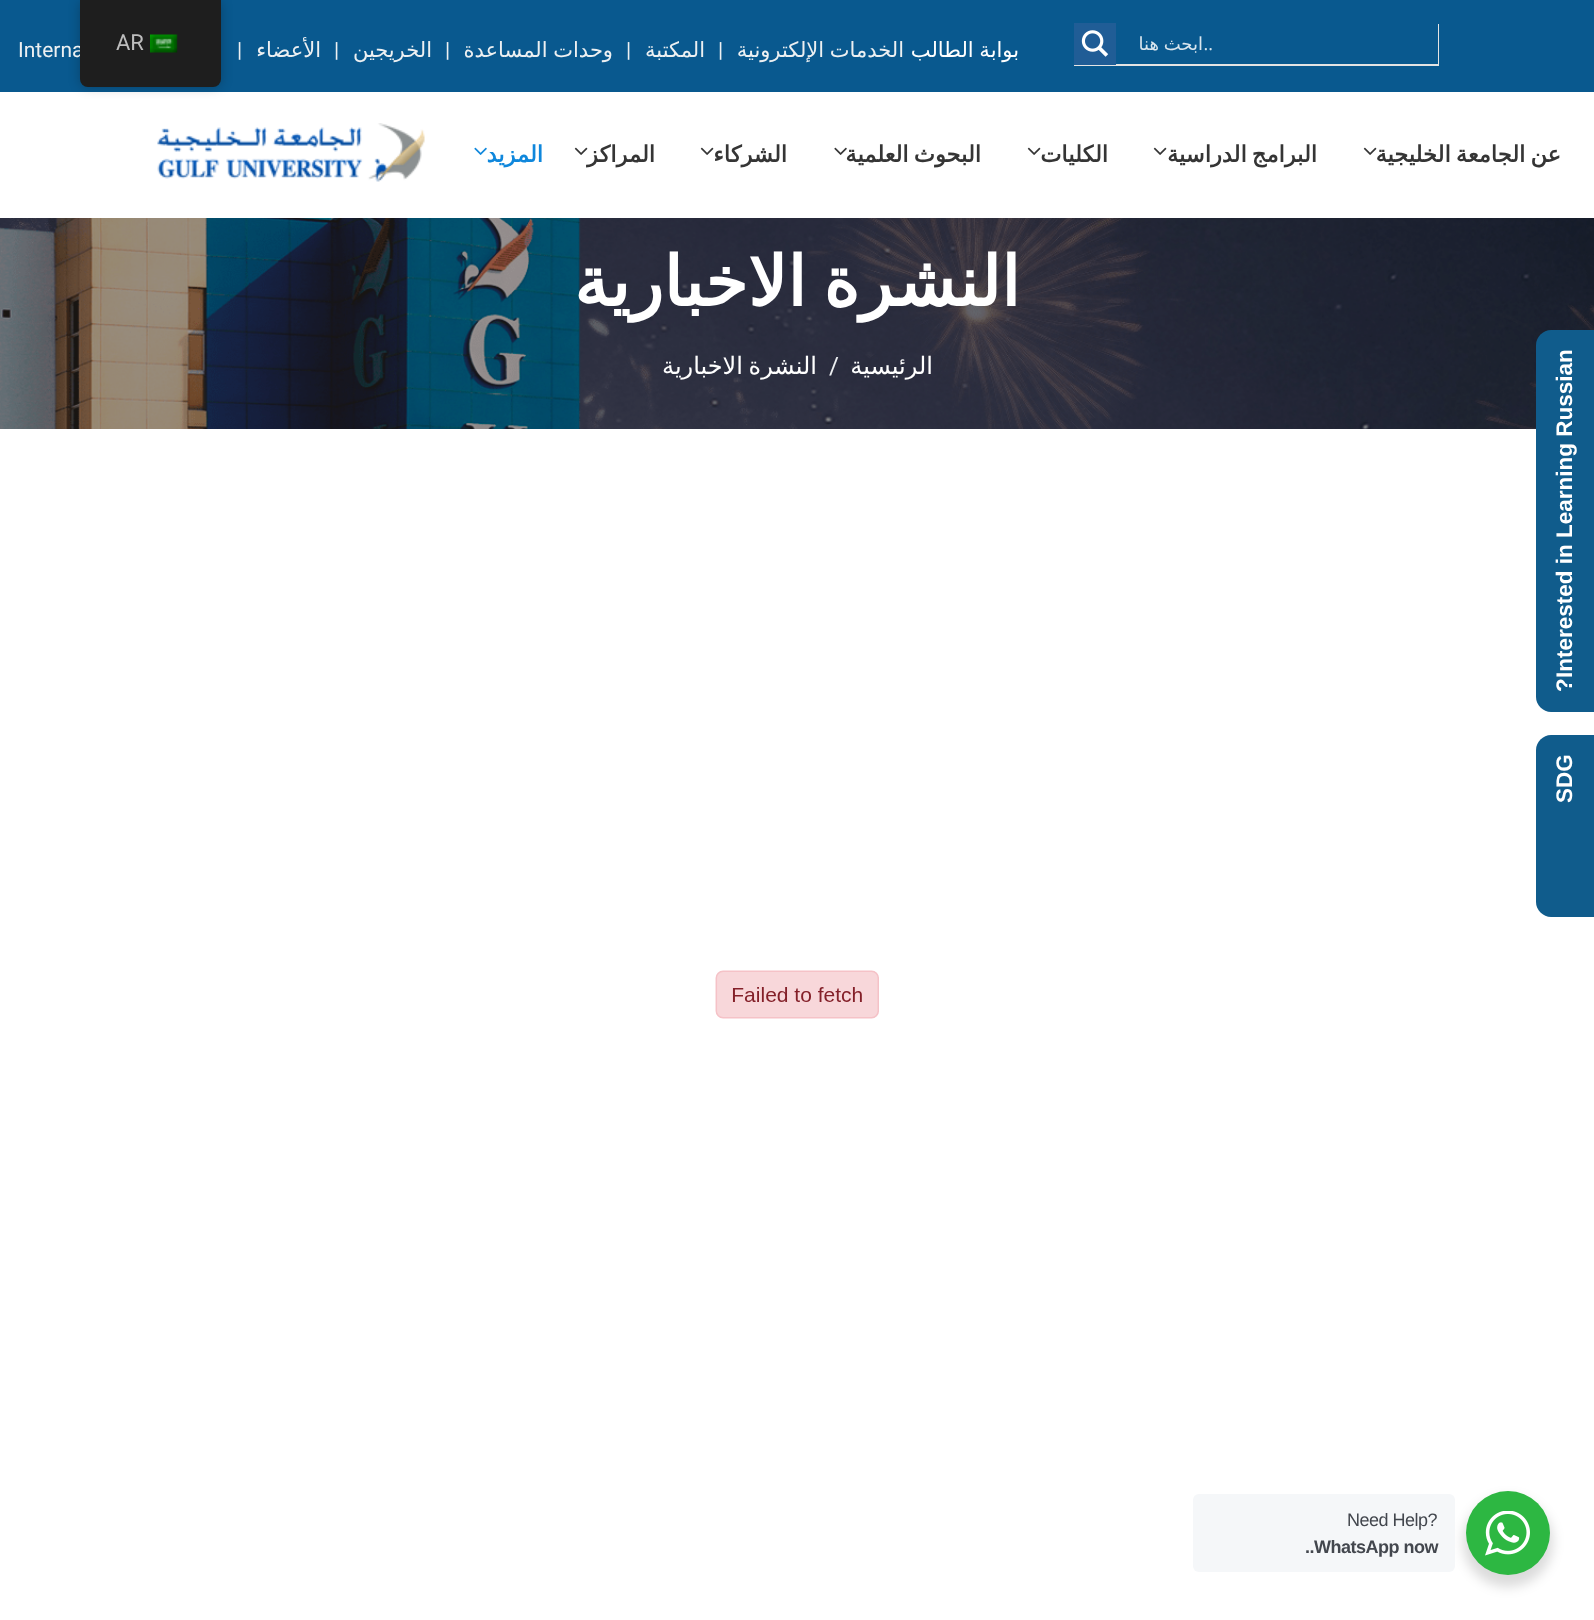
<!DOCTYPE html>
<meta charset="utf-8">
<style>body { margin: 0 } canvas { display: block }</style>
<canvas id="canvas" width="1594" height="1620"></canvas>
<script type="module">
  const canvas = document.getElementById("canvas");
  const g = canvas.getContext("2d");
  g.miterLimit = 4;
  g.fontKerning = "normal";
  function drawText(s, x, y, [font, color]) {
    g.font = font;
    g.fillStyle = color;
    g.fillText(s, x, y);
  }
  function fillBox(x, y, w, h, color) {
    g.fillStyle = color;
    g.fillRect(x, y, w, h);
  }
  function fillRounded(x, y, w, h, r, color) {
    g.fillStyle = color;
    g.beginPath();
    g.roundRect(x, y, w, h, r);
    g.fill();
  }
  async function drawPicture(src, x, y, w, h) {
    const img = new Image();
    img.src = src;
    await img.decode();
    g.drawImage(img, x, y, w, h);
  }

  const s1 = ["21px Roboto", "#EDF0F2"];
  const s2 = ["22px Roboto", "#BDBDBD"];
  const s3 = ["18px Open Sans", "#DAE6EE"];
  const s4 = ["18px DejaVu Sans", "#DAE6EE"];
  const s5 = ["21px DejaVu Sans", "#FFFFFF"];
  const s6 = ["21px DejaVu Sans", "#EDF0F2"];
  const s7 = ["bold 22.5px DejaVu Sans", "#353535"];
  const s8 = ["bold 22.5px DejaVu Sans", "#0F87DC"];
  const s9 = ["bold 69px DejaVu Sans", "#FFFFFF"];
  const s10 = ["24px DejaVu Sans", "#FFFFFF"];
  const s11 = ["24px Roboto", "#EDF0F2"];
  const s12 = ["18px Liberation Sans", "#43474E"];
  const s13 = ["bold 18px Liberation Sans", "#43474E"];

  fillBox(0, 0, 1594, 1620, "#FFFFFF");
  fillBox(0, 0, 1594, 92, "#09598F");
  g.fillStyle = "rgba(0, 0, 0, 0.25)";
  g.filter = "blur(6px)";
  g.beginPath();
  g.roundRect(80, 0, 141, 87, 8);
  g.fill();
  g.filter = "none";
  drawText("Interna", 18, 57, s1);
  g.fillStyle = "#1E1E1E";
  g.beginPath();
  g.roundRect(80, 0, 141, 87, [0, 0, 8, 8]);
  g.fill();
  await drawPicture("pic1.png", 150, 34, 28, 19);
  drawText("AR", 116, 50, s2);
  g.fillStyle = "#E4E4E4";
  g.beginPath();
  g.moveTo(1074, 64);
  g.lineTo(1074, 66);
  g.lineTo(1439, 66);
  g.lineTo(1439, 24);
  g.lineTo(1438, 24);
  g.lineTo(1438, 64);
  g.closePath();
  g.fill();
  g.direction = "rtl";
  drawText("..", 1213, 50, s3);
  g.wordSpacing = "-1px";
  drawText("ابحث هنا", 1203, 50, s4);
  fillBox(1074, 23, 42, 42, "#205D96");
  await drawPicture("pic2.png", 1081, 30, 28, 27);
  drawText("بوابة الطالب", 1019, 57, s5);
  drawText("الخدمات الإلكترونية", 904, 57, s6);
  g.wordSpacing = "0px";
  g.direction = "ltr";
  drawText("|", 718, 57, s1);
  g.direction = "rtl";
  drawText("المكتبة", 705, 57, s6);
  g.direction = "ltr";
  drawText("|", 626, 57, s1);
  g.wordSpacing = "-1px";
  g.direction = "rtl";
  drawText("وحدات المساعدة", 613, 57, s6);
  g.wordSpacing = "0px";
  g.direction = "ltr";
  drawText("|", 445, 57, s1);
  g.direction = "rtl";
  drawText("الخريجين", 432, 57, s6);
  g.direction = "ltr";
  drawText("|", 334, 57, s1);
  g.direction = "rtl";
  drawText("الأعضاء", 321, 57, s6);
  g.direction = "ltr";
  drawText("|", 237, 57, s1);
  g.wordSpacing = "-2px";
  g.direction = "rtl";
  drawText("عن الجامعة الخليجية", 1561, 162, s7);
  await drawPicture("pic3.png", 1363, 147, 14, 8);
  drawText("البرامج الدراسية", 1317, 162, s7);
  await drawPicture("pic3.png", 1153, 147, 14, 8);
  g.wordSpacing = "0px";
  drawText("الكليات", 1108, 162, s7);
  await drawPicture("pic3.png", 1027, 147, 14, 8);
  g.wordSpacing = "-2px";
  drawText("البحوث العلمية", 981, 162, s7);
  await drawPicture("pic4.png", 834, 147, 13, 8);
  g.wordSpacing = "0px";
  drawText("الشركاء", 787, 162, s7);
  await drawPicture("pic3.png", 700, 147, 14, 8);
  drawText("المراكز", 655, 162, s7);
  await drawPicture("pic3.png", 574, 147, 14, 8);
  drawText("المزيد", 543, 162, s8);
  await drawPicture("pic5.png", 474, 147, 13, 8);
  await drawPicture("pic6.png", 157, 123, 268, 59);
  await drawPicture("pic7.png", 0, 218, 1594, 211);
  g.wordSpacing = "-5px";
  drawText("النشرة الاخبارية", 1020, 306, s9);
  g.wordSpacing = "0px";
  drawText("الرئيسية", 933, 374, s10);
  g.direction = "ltr";
  drawText("/", 829, 374, s11);
  g.wordSpacing = "-2px";
  g.direction = "rtl";
  drawText("النشرة الاخبارية", 817, 374, s10);
  await drawPicture("pic8.png", 715, 970, 164, 49);
  g.fillStyle = "#105C8C";
  g.beginPath();
  g.moveTo(1536, 697);
  g.lineTo(1536, 345);
  g.bezierCurveTo(1536, 337, 1543, 330, 1551, 330);
  g.lineTo(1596, 330);
  g.lineTo(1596, 712);
  g.lineTo(1551, 712);
  g.bezierCurveTo(1543, 712, 1536, 705, 1536, 697);
  g.closePath();
  g.fill();
  g.wordSpacing = "0px";
  g.direction = "ltr";
  g.font = "bold 22.5px Liberation Sans";
  g.fillStyle = "#FFFFFF";
  g.save();
  g.translate(1572, 678);
  g.rotate(-90 * Math.PI / 180);
  g.fillText("Interested in Learning Russian", 0, 0);
  g.restore();
  g.save();
  g.translate(1572, 692);
  g.rotate(-90 * Math.PI / 180);
  g.fillText("?", 0, 0);
  g.restore();
  g.fillStyle = "#105C8C";
  g.beginPath();
  g.moveTo(1536, 902);
  g.lineTo(1536, 750);
  g.bezierCurveTo(1536, 742, 1543, 735, 1551, 735);
  g.lineTo(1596, 735);
  g.lineTo(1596, 917);
  g.lineTo(1551, 917);
  g.bezierCurveTo(1543, 917, 1536, 910, 1536, 902);
  g.closePath();
  g.fill();
  g.fillStyle = "#FFFFFF";
  g.save();
  g.translate(1572, 803);
  g.rotate(-90 * Math.PI / 180);
  g.fillText("SDG", 0, 0);
  g.restore();
  g.direction = "rtl";
  g.font = "bold 22.5px DejaVu Sans";
  g.save();
  g.translate(1660, 898);
  g.rotate(-90 * Math.PI / 180);
  g.fillText("المبادرات", 0, 0);
  g.restore();
  g.fillStyle = "rgba(0, 0, 0, 0.14)";
  g.filter = "blur(6px)";
  g.beginPath();
  g.roundRect(1463, 1497, 90, 90, 45);
  g.fill();
  g.filter = "none";
  g.fillStyle = "#2DB742";
  g.beginPath();
  g.arc(1508, 1533, 42, 0, Math.PI * 2);
  g.fill();
  await drawPicture("pic9.png", 1485, 1511, 45, 45);
  fillRounded(1193, 1494, 262, 78, 6, "#F5F7F9");
  g.letterSpacing = "-0.5px";
  g.direction = "ltr";
  drawText("Need Help?", 1347, 1526, s12);
  drawText("..WhatsApp now", 1305, 1553, s13);
</script>
